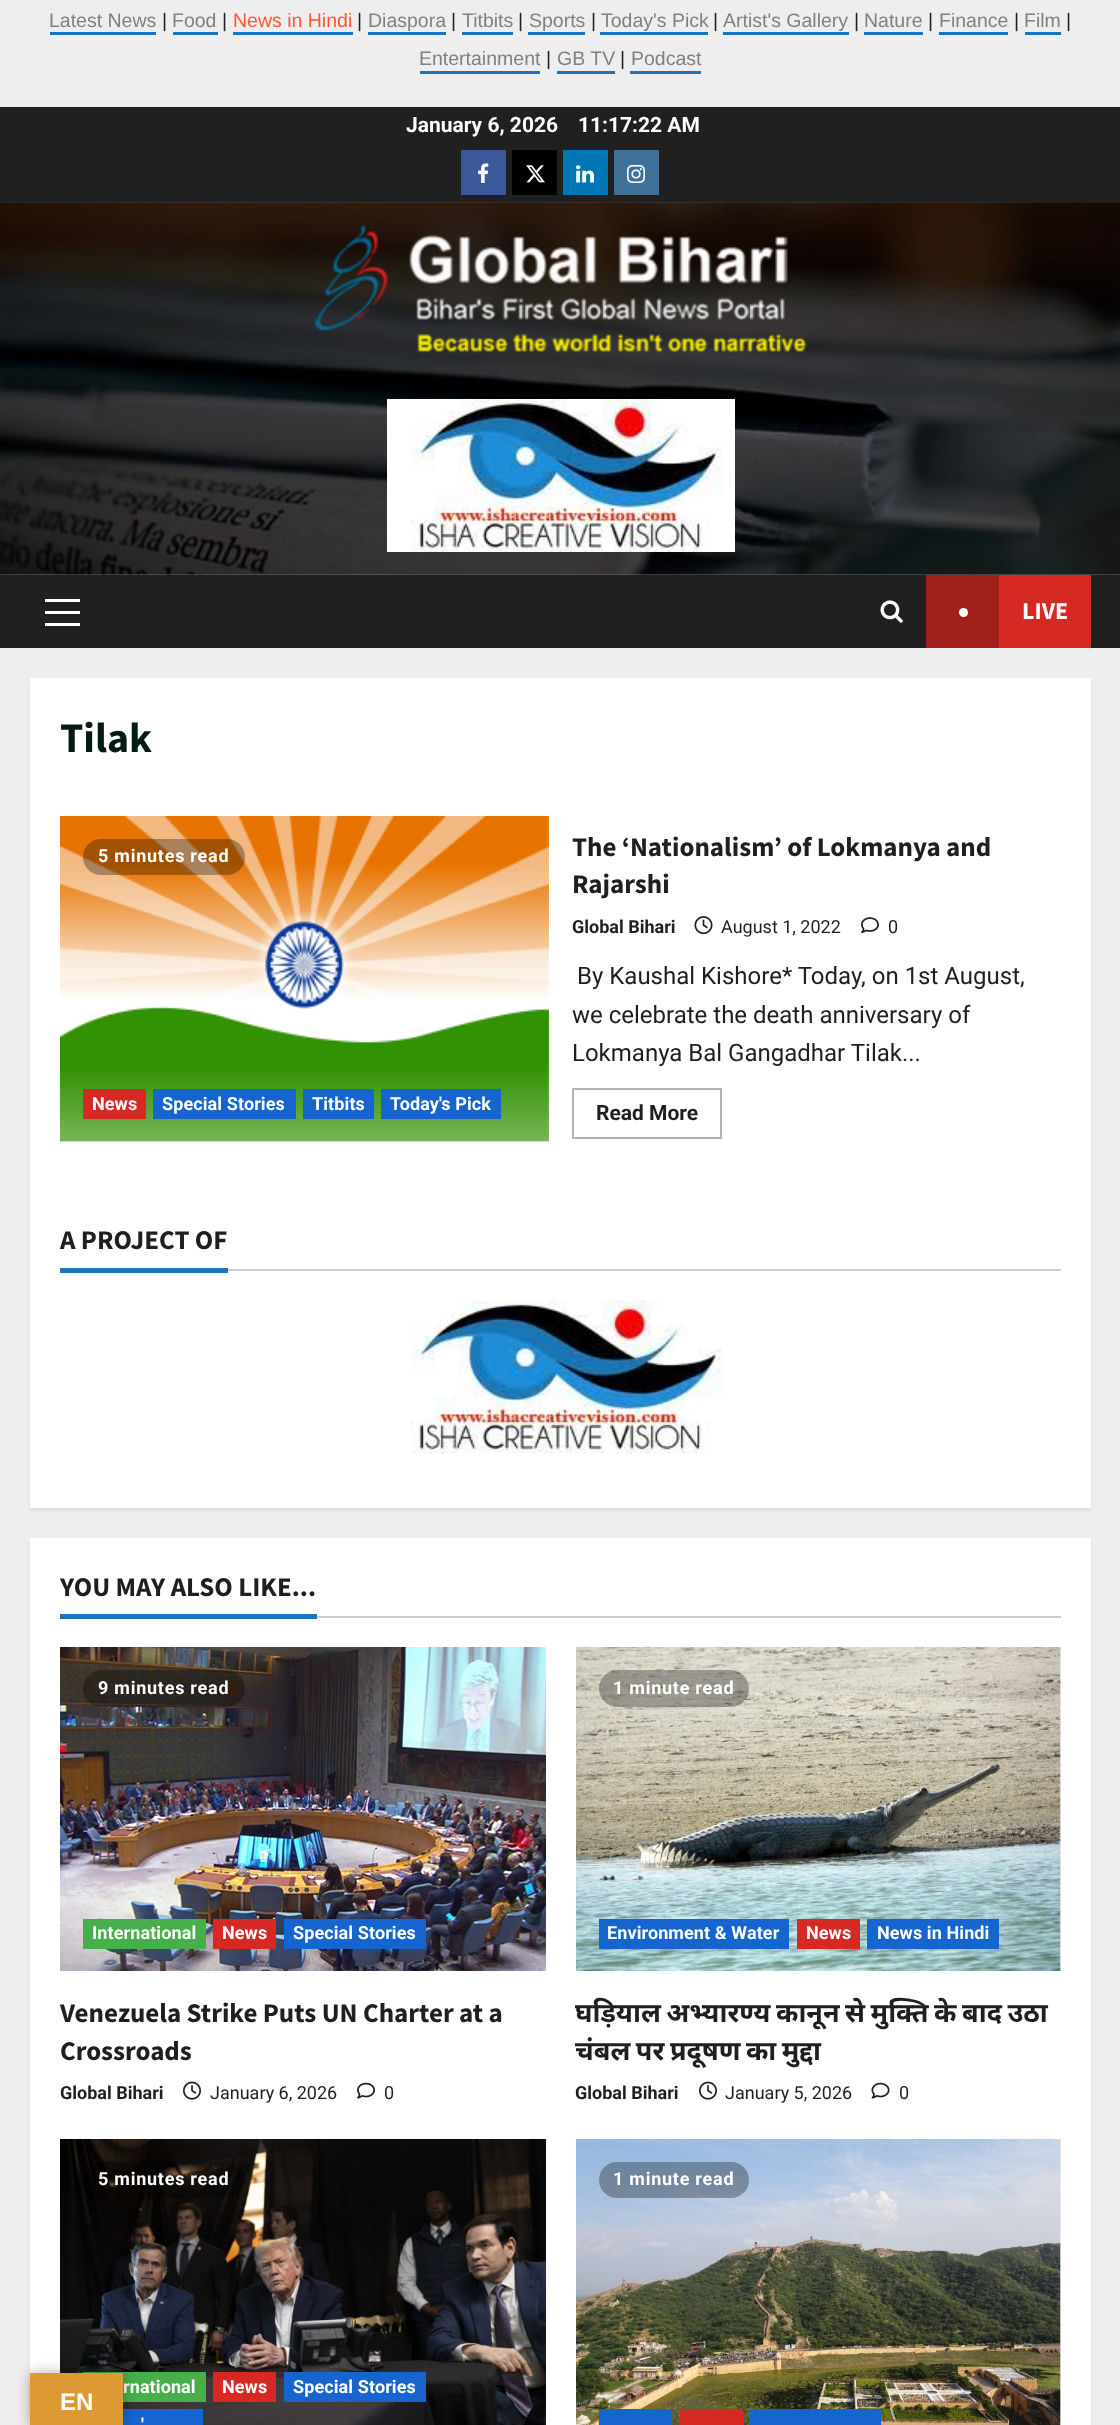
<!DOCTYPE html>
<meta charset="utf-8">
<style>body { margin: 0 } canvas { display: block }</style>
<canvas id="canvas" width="1120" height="2425"></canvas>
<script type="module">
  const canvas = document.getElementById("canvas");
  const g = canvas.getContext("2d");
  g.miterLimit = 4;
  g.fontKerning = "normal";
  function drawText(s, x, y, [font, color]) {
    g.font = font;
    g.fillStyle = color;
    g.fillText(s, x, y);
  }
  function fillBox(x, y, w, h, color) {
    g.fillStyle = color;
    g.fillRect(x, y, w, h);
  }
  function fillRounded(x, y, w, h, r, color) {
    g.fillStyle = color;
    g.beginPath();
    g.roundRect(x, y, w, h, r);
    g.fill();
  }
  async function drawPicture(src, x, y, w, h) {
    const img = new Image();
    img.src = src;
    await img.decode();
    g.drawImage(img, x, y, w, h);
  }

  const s1 = ["19.5px Liberation Sans", "#808080"];
  const s2 = ["19.5px Liberation Sans", "#1F1F1F"];
  const s3 = ["19.5px Liberation Sans", "#FF5733"];
  const s4 = ["bold 21px Roboto", "#FFFFFF"];
  const s5 = ["bold 24px Source Sans Pro", "#FFFFFF"];
  const s6 = ["bold 42px Source Sans Pro", "#031B11"];
  const s7 = ["bold 18px Roboto", "#FFFFFF"];
  const s8 = ["bold 27px Source Sans Pro", "#1F1F1F"];
  const s9 = ["bold 18px Roboto", "#1F1F1F"];
  const s10 = ["18px Roboto", "#1F1F1F"];
  const s11 = ["24px Roboto", "#1F1F1F"];
  const s12 = ["bold 21px Roboto", "#1F1F1F"];
  const s13 = ["bold 27px Noto Sans", "#1F1F1F"];
  const s14 = ["bold 24px Liberation Sans", "#FFFFFF"];

  fillBox(0, 0, 1120, 2425, "#EEEEEE");
  fillBox(0, 574, 1120, 1, "#6B6B6B");
  drawText("Latest News", 49, 27, s1);
  fillBox(50, 32, 106, 3, "#1E73BE");
  drawText("|", 162, 27, s2);
  drawText("Food", 172, 27, s1);
  fillBox(173, 32, 45, 3, "#1E73BE");
  drawText("|", 222, 27, s2);
  drawText("News in Hindi", 233, 27, s3);
  fillBox(233, 32, 120, 3, "#1E73BE");
  drawText("|", 357, 27, s2);
  drawText("Diaspora", 368, 27, s1);
  fillBox(368, 32, 78, 3, "#1E73BE");
  drawText("|", 451, 27, s2);
  drawText("Titbits", 462, 27, s1);
  fillBox(462, 32, 51, 3, "#1E73BE");
  drawText("|", 518, 27, s2);
  drawText("Sports", 529, 27, s1);
  fillBox(528, 32, 57, 3, "#1E73BE");
  drawText("|", 591, 27, s2);
  drawText("Today's Pick", 601, 27, s1);
  fillBox(600, 32, 108, 3, "#1E73BE");
  drawText("|", 713, 27, s2);
  drawText("Artist's Gallery", 723, 27, s1);
  fillBox(723, 32, 126, 3, "#1E73BE");
  drawText("|", 854, 27, s2);
  drawText("Nature", 864, 27, s1);
  fillBox(864, 32, 59, 3, "#1E73BE");
  drawText("|", 928, 27, s2);
  drawText("Finance", 939, 27, s1);
  fillBox(939, 32, 69, 3, "#1E73BE");
  drawText("|", 1014, 27, s2);
  drawText("Film", 1024, 27, s1);
  fillBox(1025, 32, 36, 3, "#1E73BE");
  drawText("|", 1066, 27, s2);
  drawText("Entertainment", 419, 65, s1);
  fillBox(420, 71, 120, 3, "#1E73BE");
  drawText("|", 546, 65, s2);
  drawText("GB TV", 557, 65, s1);
  fillBox(557, 71, 58, 3, "#1E73BE");
  drawText("|", 620, 65, s2);
  drawText("Podcast", 631, 65, s1);
  fillBox(630, 71, 71, 3, "#1E73BE");
  fillBox(0, 107, 1120, 96, "#202020");
  drawText("January 6, 2026", 406, 132, s4);
  drawText("11:17:22 AM", 578, 132, s4);
  fillBox(461, 150, 45, 45, "#3B5999");
  await drawPicture("pic1.png", 478, 163, 11, 20);
  fillBox(512, 150, 45, 45, "#000000");
  await drawPicture("pic2.png", 526, 165, 19, 18);
  fillBox(563, 150, 45, 45, "#0077B5");
  await drawPicture("pic3.png", 576, 165, 18, 18);
  fillBox(614, 150, 45, 45, "#3F729B");
  await drawPicture("pic4.png", 627, 165, 18, 18);
  await drawPicture("pic5.png", 0, 202, 1120, 373);
  await drawPicture("pic6.png", 314, 225, 493, 128);
  await drawPicture("pic7.png", 387, 399, 348, 153);
  fillBox(0, 575, 1120, 73, "#202020");
  fillBox(45, 611, 35, 3, "#FFFFFF");
  fillBox(45, 599, 35, 3, "#FFFFFF");
  fillBox(45, 623, 35, 3, "#FFFFFF");
  await drawPicture("pic8.png", 880, 600, 23, 23);
  fillBox(999, 575, 92, 73, "#D72924");
  fillBox(926, 575, 73, 73, "#A11F1B");
  g.fillStyle = "#FFFFFF";
  g.beginPath();
  g.arc(963.5, 612.5, 4.5, 0, Math.PI * 2);
  g.fill();
  drawText("LIVE", 1022, 619, s5);
  g.fillStyle = "rgba(0, 0, 0, 0.08)";
  g.filter = "blur(1.5px)";
  g.beginPath();
  g.rect(30, 681, 1061, 513);
  g.fill();
  g.filter = "none";
  fillBox(30, 678, 1061, 513, "#FFFFFF");
  drawText("Tilak", 60, 752, s6);
  fillBox(60, 1141, 489, 1, "#ECECEC");
  await drawPicture("pic9.png", 60, 816, 489, 326);
  fillRounded(83, 839, 162, 36, 18, "rgba(0, 0, 0, 0.3)");
  g.letterSpacing = "0.75px";
  drawText("5 minutes read", 98, 862, s7);
  fillBox(83, 1089, 63, 30, "#D72924");
  g.letterSpacing = "0.1px";
  drawText("News", 92, 1110, s7);
  fillBox(153, 1089, 143, 30, "#1665CF");
  drawText("Special Stories", 162, 1110, s7);
  fillBox(303, 1089, 71, 30, "#1665CF");
  drawText("Titbits", 312, 1110, s7);
  fillBox(381, 1089, 120, 30, "#1665CF");
  drawText("Today's Pick", 390, 1110, s7);
  g.letterSpacing = "0px";
  drawText("The ‘Nationalism’ of Lokmanya and", 572, 856, s8);
  drawText("Rajarshi", 572, 893, s8);
  drawText("Global Bihari", 572, 933, s9);
  await drawPicture("pic10.png", 694, 916, 19, 19);
  drawText("August 1, 2022", 721, 933, s10);
  await drawPicture("pic11.png", 861, 917, 18, 16);
  drawText("0", 888, 933, s10);
  drawText("By Kaushal Kishore* Today, on 1st August,", 577, 984, s11);
  drawText("we celebrate the death anniversary of", 572, 1023, s11);
  drawText("Lokmanya Bal Gangadhar Tilak...", 572, 1061, s11);
  g.strokeStyle = "#B3B3B3";
  g.lineWidth = 2;
  g.strokeRect(573, 1089, 148, 49);
  drawText("Read More", 596, 1120, s12);
  g.fillStyle = "rgba(0, 0, 0, 0.08)";
  g.filter = "blur(1.5px)";
  g.beginPath();
  g.rect(30, 1194, 1061, 317);
  g.fill();
  g.filter = "none";
  fillBox(30, 1191, 1061, 317, "#FFFFFF");
  fillBox(228, 1269, 833, 2, "#CCCCCC");
  drawText("A PROJECT OF", 60, 1249, s8);
  fillBox(60, 1268, 168, 5, "#1E73BE");
  await drawPicture("pic12.png", 411, 1300, 313, 154);
  g.fillStyle = "rgba(0, 0, 0, 0.08)";
  g.filter = "blur(1.5px)";
  g.beginPath();
  g.rect(30, 1541, 1061, 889);
  g.fill();
  g.filter = "none";
  fillBox(30, 1538, 1061, 887, "#FFFFFF");
  fillBox(317, 1616, 744, 2, "#CCCCCC");
  drawText("YOU MAY ALSO LIKE...", 60, 1596, s8);
  fillBox(60, 1614, 257, 5, "#1E73BE");
  await drawPicture("pic13.png", 60, 1647, 486, 324);
  fillRounded(83, 1670, 162, 37, 18.5, "rgba(0, 0, 0, 0.3)");
  g.letterSpacing = "0.75px";
  drawText("9 minutes read", 98, 1694, s7);
  fillBox(83, 1919, 123, 30, "#46AF4B");
  g.letterSpacing = "0.1px";
  drawText("International", 92, 1939, s7);
  fillBox(213, 1919, 63, 30, "#D72924");
  drawText("News", 222, 1939, s7);
  fillBox(284, 1919, 142, 30, "#1665CF");
  drawText("Special Stories", 293, 1939, s7);
  g.letterSpacing = "0px";
  drawText("Venezuela Strike Puts UN Charter at a", 60, 2022, s8);
  drawText("Crossroads", 60, 2060, s8);
  drawText("Global Bihari", 60, 2099, s9);
  await drawPicture("pic14.png", 183, 2081, 18, 19);
  drawText("January 6, 2026", 210, 2099, s10);
  await drawPicture("pic15.png", 357, 2082, 18, 17);
  drawText("0", 384, 2099, s10);
  fillBox(1060, 1647, 1, 324, "#ECECEC");
  await drawPicture("pic16.png", 576, 1647, 485, 324);
  fillRounded(599, 1670, 150, 37, 18.5, "rgba(0, 0, 0, 0.3)");
  g.letterSpacing = "0.75px";
  drawText("1 minute read", 613, 1694, s7);
  fillBox(599, 1919, 190, 30, "#1665CF");
  g.letterSpacing = "0.1px";
  drawText("Environment & Water", 607, 1939, s7);
  fillBox(797, 1919, 63, 30, "#D72924");
  drawText("News", 806, 1939, s7);
  fillBox(867, 1919, 132, 30, "#1665CF");
  drawText("News in Hindi", 877, 1939, s7);
  g.letterSpacing = "0px";
  g.wordSpacing = "-1.5px";
  drawText("घड़ियाल अभ्यारण्य कानून से मुक्ति के बाद उठा", 575, 2022, s13);
  drawText("चंबल पर प्रदूषण का मुद्दा", 575, 2060, s13);
  g.wordSpacing = "0px";
  drawText("Global Bihari", 575, 2099, s9);
  await drawPicture("pic14.png", 699, 2081, 18, 19);
  drawText("January 5, 2026", 725, 2099, s10);
  await drawPicture("pic17.png", 871, 2082, 19, 17);
  drawText("0", 899, 2099, s10);
  await drawPicture("pic18.png", 60, 2139, 486, 286);
  fillRounded(83, 2162, 162, 36, 18, "rgba(0, 0, 0, 0.3)");
  g.letterSpacing = "0.75px";
  drawText("5 minutes read", 98, 2185, s7);
  fillBox(83, 2372, 123, 30, "#46AF4B");
  g.letterSpacing = "0.1px";
  drawText("rnational", 123, 2393, s7);
  fillBox(213, 2372, 63, 30, "#D72924");
  drawText("News", 222, 2393, s7);
  fillBox(284, 2372, 142, 30, "#1665CF");
  drawText("Special Stories", 293, 2393, s7);
  fillBox(123, 2409, 80, 16, "#1665CF");
  drawText("'", 141, 2431, s7);
  fillBox(1060, 2139, 1, 286, "#ECECEC");
  await drawPicture("pic19.png", 576, 2139, 485, 286);
  fillRounded(599, 2162, 150, 36, 18, "rgba(0, 0, 0, 0.3)");
  g.letterSpacing = "0.75px";
  drawText("1 minute read", 613, 2185, s7);
  fillBox(599, 2409, 73, 16, "#1665CF");
  fillBox(680, 2409, 63, 16, "#D72924");
  fillBox(750, 2409, 131, 16, "#1665CF");
  g.fillStyle = "rgba(0, 0, 0, 0.3)";
  g.filter = "blur(7px)";
  g.beginPath();
  g.rect(30, 2373, 93, 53);
  g.fill();
  g.filter = "none";
  fillBox(30, 2373, 93, 52, "#DD9933");
  g.letterSpacing = "0px";
  drawText("EN", 60, 2410, s14);
</script>
